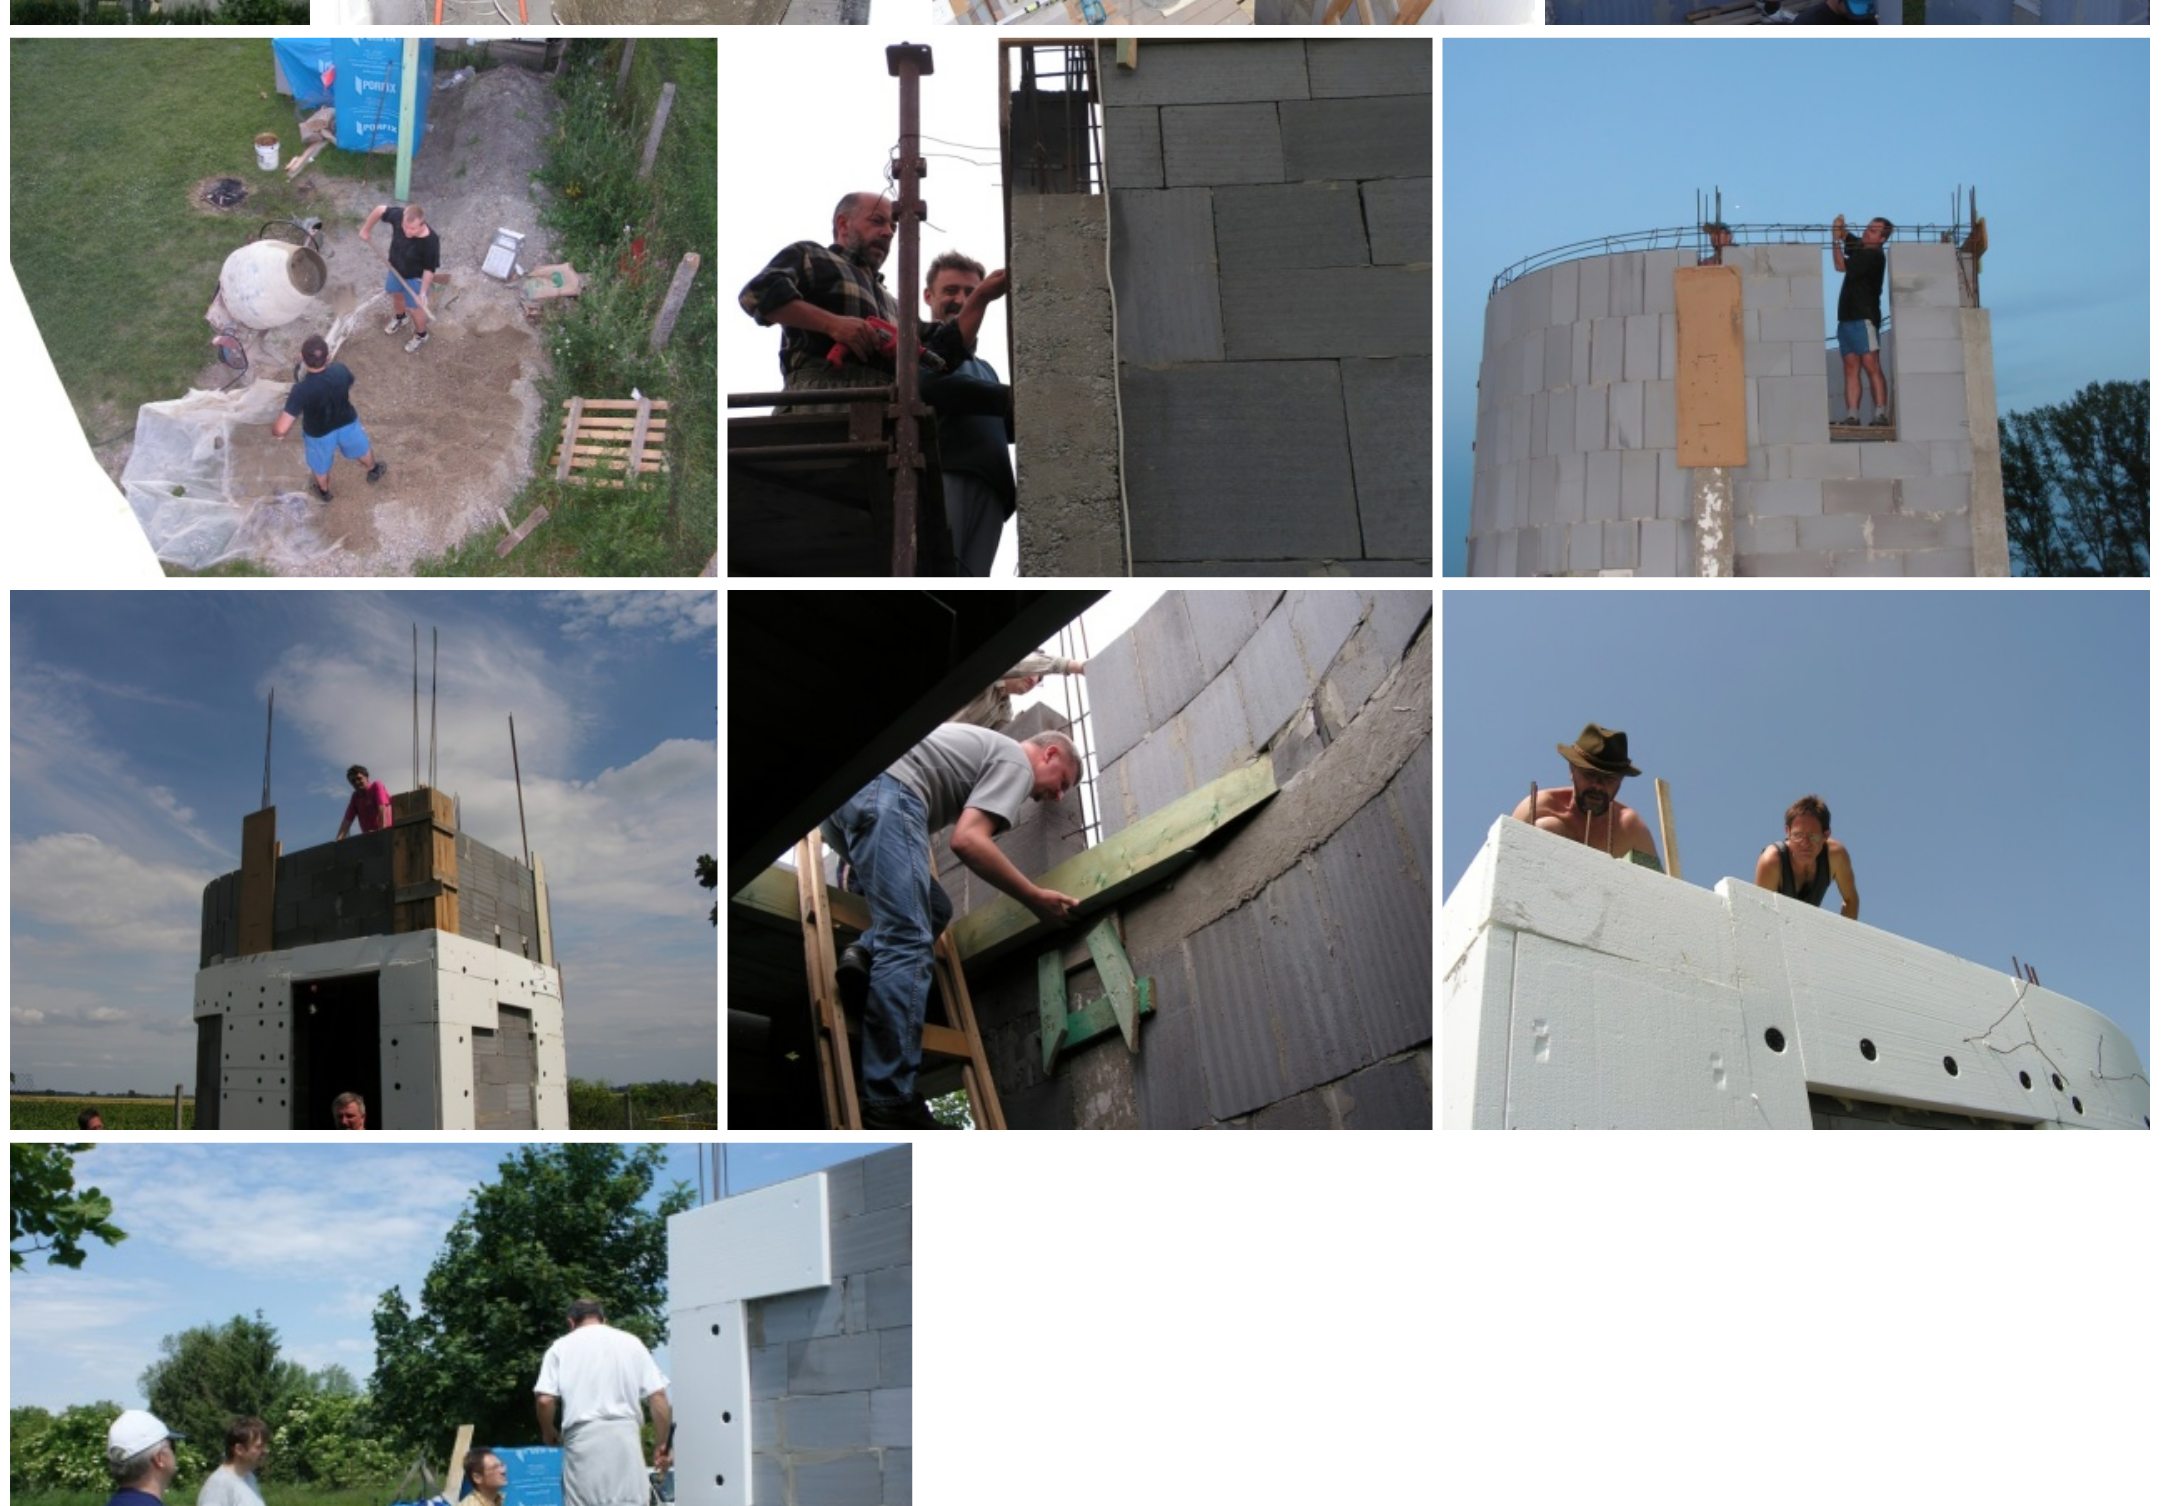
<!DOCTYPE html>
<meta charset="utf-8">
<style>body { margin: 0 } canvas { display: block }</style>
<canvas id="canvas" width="2162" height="1506"></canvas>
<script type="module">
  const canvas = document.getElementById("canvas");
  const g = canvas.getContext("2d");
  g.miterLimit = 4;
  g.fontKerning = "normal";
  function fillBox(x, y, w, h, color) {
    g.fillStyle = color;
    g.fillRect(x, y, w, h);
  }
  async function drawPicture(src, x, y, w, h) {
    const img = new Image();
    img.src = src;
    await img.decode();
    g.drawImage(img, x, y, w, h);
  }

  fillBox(0, 0, 2162, 1506, "#FFFFFF");
  await drawPicture("pic1.png", 10, 0, 300, 25);
  await drawPicture("pic2.png", 335, 0, 538, 25);
  await drawPicture("pic3.png", 932, 0, 603, 25);
  await drawPicture("pic4.png", 1545, 0, 605, 25);
  await drawPicture("pic5.png", 10, 37, 708, 541);
  await drawPicture("pic6.png", 727, 37, 706, 541);
  await drawPicture("pic7.png", 1442, 37, 708, 541);
  await drawPicture("pic8.png", 10, 590, 708, 540);
  await drawPicture("pic9.png", 727, 590, 706, 540);
  await drawPicture("pic10.png", 1442, 590, 708, 540);
  await drawPicture("pic11.png", 10, 1142, 903, 364);
</script>
